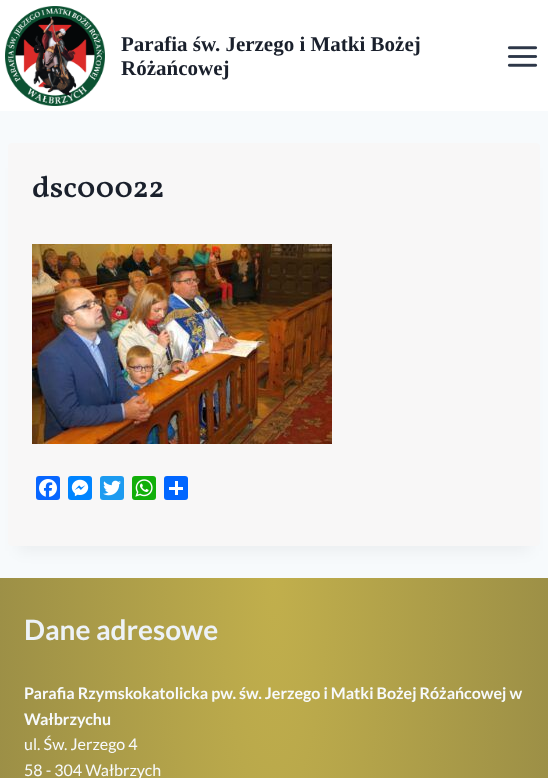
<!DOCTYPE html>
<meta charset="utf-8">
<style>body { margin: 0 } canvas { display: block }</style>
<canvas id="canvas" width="548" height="778"></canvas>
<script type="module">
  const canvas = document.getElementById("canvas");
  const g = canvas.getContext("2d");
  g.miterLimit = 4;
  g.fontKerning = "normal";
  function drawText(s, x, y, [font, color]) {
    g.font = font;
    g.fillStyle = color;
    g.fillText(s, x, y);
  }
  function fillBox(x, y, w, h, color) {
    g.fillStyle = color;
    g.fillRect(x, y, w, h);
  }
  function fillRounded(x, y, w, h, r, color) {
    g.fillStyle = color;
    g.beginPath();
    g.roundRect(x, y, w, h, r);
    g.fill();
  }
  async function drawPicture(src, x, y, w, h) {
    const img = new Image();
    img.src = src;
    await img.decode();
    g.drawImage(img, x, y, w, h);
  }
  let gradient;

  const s1 = ["bold 21px Liberation Serif", "#1A202C"];
  const s2 = ["600 30px Vollkorn", "#1A202C"];
  const s3 = ["bold 28px Lato", "#EDF2F7"];
  const s4 = ["bold 16px Lato", "#F7FAFC"];
  const s5 = ["16px Lato", "#F7FAFC"];

  fillBox(0, 0, 548, 778, "#F7FAFC");
  fillBox(0, 0, 548, 111, "#FFFFFF");
  await drawPicture("pic1.png", 5, 6, 100, 100);
  drawText("Parafia św. Jerzego i Matki Bożej", 121, 51, s1);
  drawText("Różańcowej", 121, 75, s1);
  await drawPicture("pic2.png", 507, 46, 31, 21);
  g.fillStyle = "rgba(0, 0, 0, 0.05)";
  g.filter = "blur(7.5px)";
  g.beginPath();
  g.rect(18, 168, 512, 383);
  g.fill();
  g.filter = "none";
  fillRounded(8, 143, 532, 403, 4, "#F8F7F7");
  drawText("dsc00022", 32, 197, s2);
  await drawPicture("pic3.png", 32, 244, 300, 200);
  fillRounded(36, 476, 24, 24, 3, "#0866FF");
  await drawPicture("pic4.png", 39, 479, 18, 18);
  fillRounded(68, 476, 24, 24, 3, "#0084FF");
  await drawPicture("pic5.png", 71, 479, 18, 18);
  fillRounded(100, 476, 24, 24, 3, "#1D9BF0");
  await drawPicture("pic6.png", 103, 480, 18, 16);
  fillRounded(132, 476, 24, 24, 3, "#12AF0A");
  await drawPicture("pic7.png", 135, 479, 18, 18);
  fillRounded(164, 476, 24, 24, 3, "#0166FF");
  fillBox(175, 481, 3, 14, "#FFFFFF");
  fillBox(169, 487, 14, 3, "#FFFFFF");
  gradient = g.createRadialGradient(274, 138.59, 0, 274, 138.59, 387);
  gradient.addColorStop(0, "#C1AF4C");
  gradient.addColorStop(1, "#8E8344");
  g.fillStyle = gradient;
  g.beginPath();
  g.rect(0, 578, 548, 200);
  g.save();
  g.clip();
  g.scale(1, 1614 / 387);
  g.fillRect(0, 0, 548, 187);
  g.restore();
  drawText("Dane adresowe", 24, 640, s3);
  drawText("Parafia Rzymskokatolicka pw. św. Jerzego i Matki Bożej Różańcowej w", 24, 699, s4);
  drawText("Wałbrzychu", 24, 725, s4);
  drawText("ul. Św. Jerzego 4", 24, 750, s5);
  drawText("58 - 304 Wałbrzych", 24, 776, s5);
</script>
